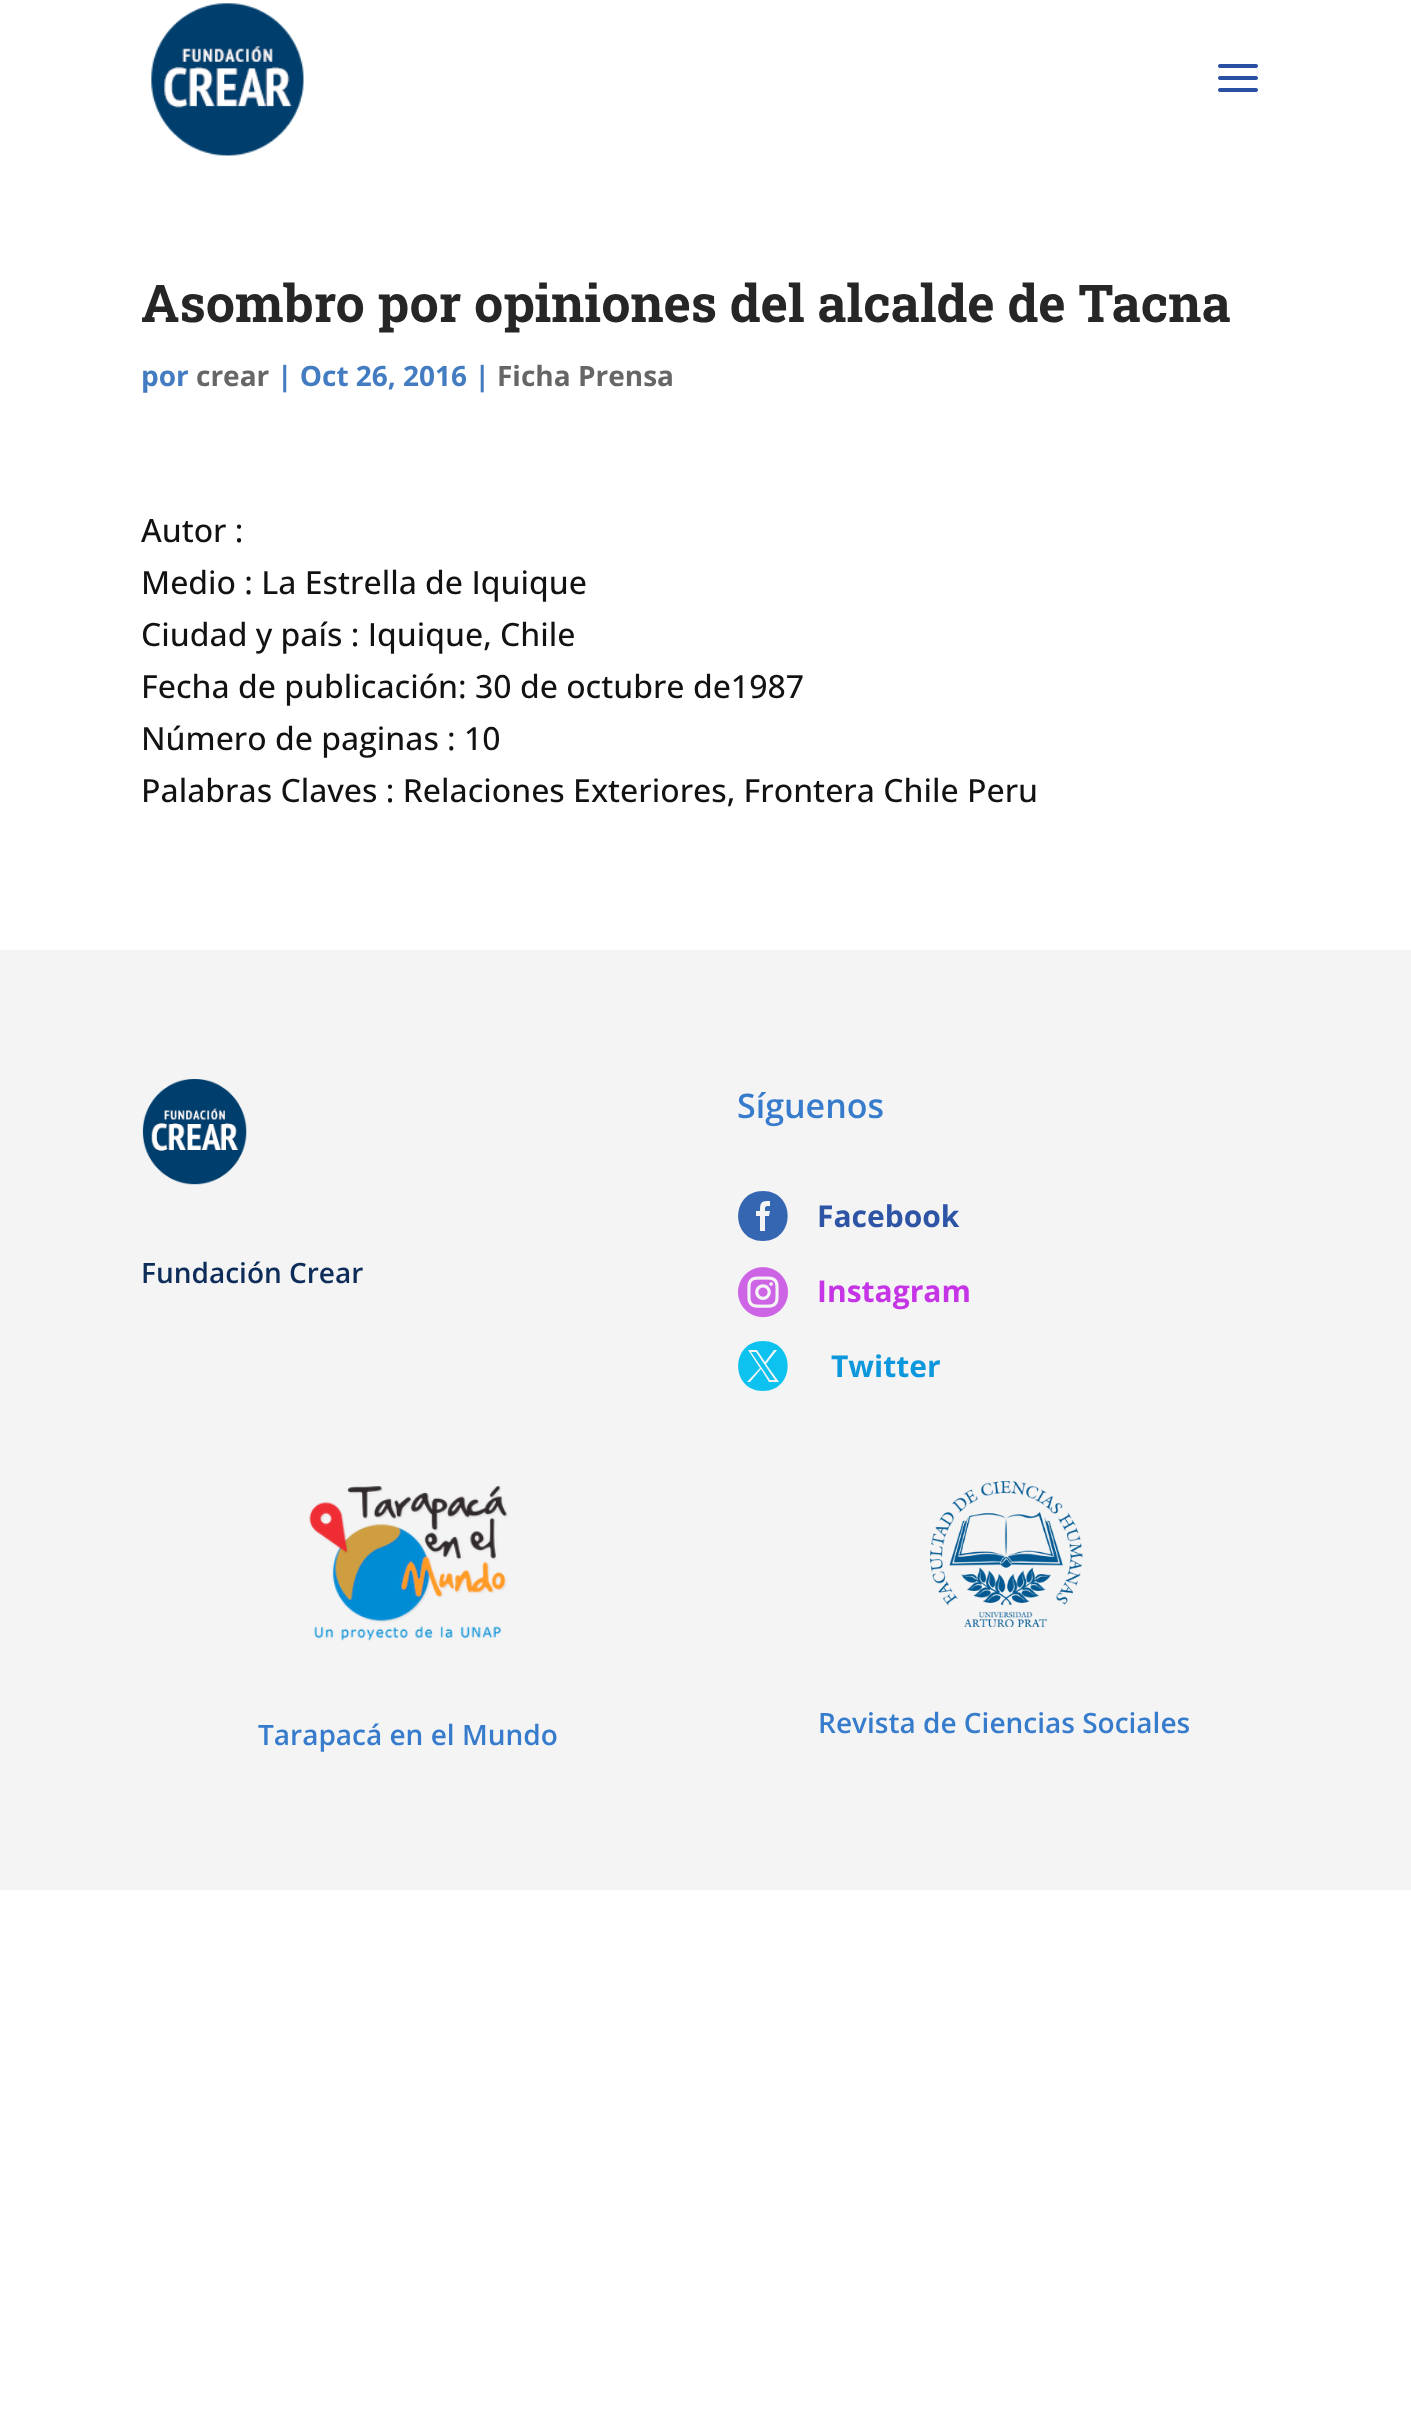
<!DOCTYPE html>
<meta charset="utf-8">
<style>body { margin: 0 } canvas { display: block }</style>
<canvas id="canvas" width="1411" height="2433"></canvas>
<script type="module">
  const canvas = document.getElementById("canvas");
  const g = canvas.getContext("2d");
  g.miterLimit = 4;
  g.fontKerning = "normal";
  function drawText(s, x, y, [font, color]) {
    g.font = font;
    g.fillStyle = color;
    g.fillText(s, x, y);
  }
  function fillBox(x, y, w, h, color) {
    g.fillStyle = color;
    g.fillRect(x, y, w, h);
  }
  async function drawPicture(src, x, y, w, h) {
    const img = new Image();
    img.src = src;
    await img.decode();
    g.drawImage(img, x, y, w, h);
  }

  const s1 = ["bold 52px Roboto Slab", "#262626"];
  const s2 = ["bold 28px Open Sans", "#437CC0"];
  const s3 = ["bold 28px Open Sans", "#666666"];
  const s4 = ["500 32px Open Sans", "#121212"];
  const s5 = ["600 28px Open Sans", "#0D2C59"];
  const s6 = ["600 34px Open Sans", "#377CCC"];
  const s7 = ["bold 30px Open Sans", "#2D54A5"];
  const s8 = ["bold 30px Open Sans", "#C534E5"];
  const s9 = ["bold 30px Open Sans", "#0D98DD"];
  const s10 = ["600 28px Open Sans", "#377CCC"];

  fillBox(0, 0, 1411, 2433, "#FFFFFF");
  await drawPicture("pic1.png", 151, 3, 153, 153);
  await drawPicture("pic2.png", 1218, 64, 40, 28);
  drawText("Asombro por opiniones del alcalde de Tacna", 141, 322, s1);
  drawText("por", 141, 386, s2);
  drawText("crear", 196, 386, s3);
  drawText("| Oct 26, 2016 |", 277, 386, s2);
  drawText("Ficha Prensa", 497, 386, s3);
  drawText("Autor :", 141, 542, s4);
  drawText("Medio : La Estrella de Iquique", 141, 594, s4);
  drawText("Ciudad y país : Iquique, Chile", 141, 646, s4);
  drawText("Fecha de publicación: 30 de octubre de1987", 141, 698, s4);
  drawText("Número de paginas : 10", 141, 750, s4);
  drawText("Palabras Claves : Relaciones Exteriores, Frontera Chile Peru", 141, 802, s4);
  fillBox(0, 950, 1411, 940, "#F4F4F4");
  await drawPicture("pic3.png", 142, 1079, 105, 106);
  drawText("Fundación Crear", 141, 1283, s5);
  drawText("Síguenos", 737, 1118, s6);
  g.fillStyle = "#3566B2";
  g.beginPath();
  g.moveTo(763, 1191);
  g.bezierCurveTo(730, 1191, 730, 1241, 763, 1241);
  g.bezierCurveTo(796, 1241, 796, 1191, 763, 1191);
  g.closePath();
  g.moveTo(769, 1216);
  g.lineTo(765, 1216);
  g.lineTo(765, 1231);
  g.lineTo(760, 1231);
  g.lineTo(760, 1216);
  g.lineTo(756, 1216);
  g.lineTo(756, 1211);
  g.lineTo(760, 1211);
  g.bezierCurveTo(760, 1202, 761, 1201, 770, 1201);
  g.lineTo(770, 1206);
  g.bezierCurveTo(765, 1206, 765, 1206, 765, 1211);
  g.lineTo(770, 1211);
  g.closePath();
  g.fill();
  drawText("Facebook", 817, 1227, s7);
  await drawPicture("pic4.png", 738, 1267, 50, 51);
  drawText("Instagram", 817, 1302, s8);
  g.fillStyle = "#0EC2EF";
  g.beginPath();
  g.moveTo(763, 1341);
  g.bezierCurveTo(730, 1341, 730, 1391, 763, 1391);
  g.bezierCurveTo(796, 1391, 796, 1341, 763, 1341);
  g.closePath();
  g.moveTo(769, 1382);
  g.lineTo(761, 1369);
  g.lineTo(750, 1382);
  g.lineTo(747, 1382);
  g.lineTo(760, 1368);
  g.lineTo(748, 1350);
  g.lineTo(757, 1350);
  g.lineTo(765, 1362);
  g.lineTo(774, 1350);
  g.lineTo(777, 1350);
  g.lineTo(766, 1364);
  g.lineTo(779, 1382);
  g.closePath();
  g.moveTo(751, 1352);
  g.lineTo(770, 1380);
  g.lineTo(775, 1380);
  g.lineTo(756, 1352);
  g.closePath();
  g.fill();
  drawText("Twitter", 831, 1377, s9);
  await drawPicture("pic5.png", 309, 1486, 199, 155);
  drawText("Tarapacá en el Mundo", 258, 1745, s10);
  await drawPicture("pic6.png", 930, 1481, 153, 146);
  drawText("Revista de Ciencias Sociales", 818, 1733, s10);
</script>
